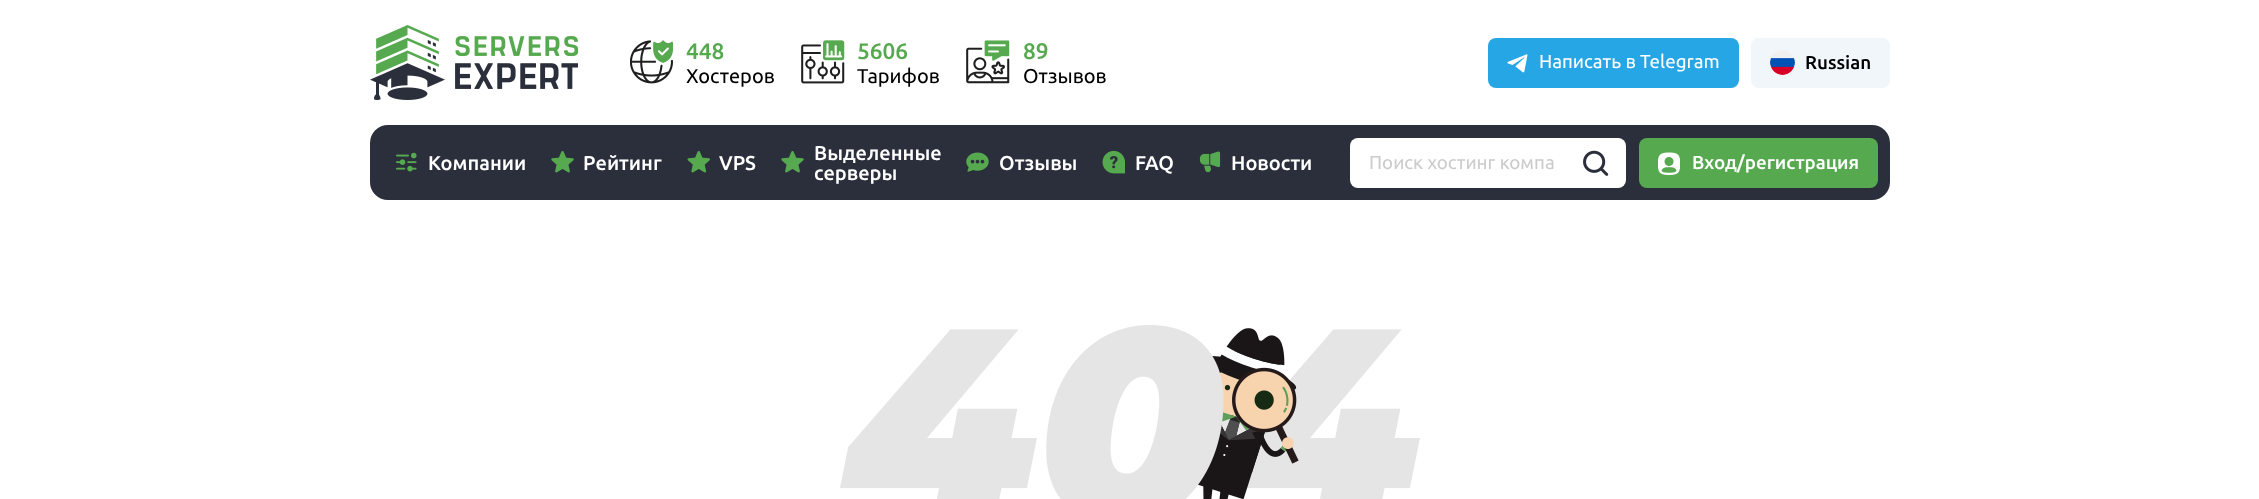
<!DOCTYPE html>
<meta charset="utf-8">
<style>body { margin: 0 } canvas { display: block }</style>
<canvas id="canvas" width="2259" height="499"></canvas>
<script type="module">
  const canvas = document.getElementById("canvas");
  const g = canvas.getContext("2d");
  g.miterLimit = 4;
  g.fontKerning = "normal";
  function drawText(s, x, y, [font, color]) {
    g.font = font;
    g.fillStyle = color;
    g.fillText(s, x, y);
  }
  function fillBox(x, y, w, h, color) {
    g.fillStyle = color;
    g.fillRect(x, y, w, h);
  }
  function fillRounded(x, y, w, h, r, color) {
    g.fillStyle = color;
    g.beginPath();
    g.roundRect(x, y, w, h, r);
    g.fill();
  }
  async function drawPicture(src, x, y, w, h) {
    const img = new Image();
    img.src = src;
    await img.decode();
    g.drawImage(img, x, y, w, h);
  }

  const s1 = ["500 22.5px Ubuntu", "#56A94F"];
  const s2 = ["20px Ubuntu", "#000000"];
  const s3 = ["18.75px Ubuntu", "#FFFFFF"];
  const s4 = ["500 18.75px Ubuntu", "#000000"];
  const s5 = ["500 20px Ubuntu", "#FFFFFF"];
  const s6 = ["18.75px Ubuntu", "#CCCCCC"];
  const s7 = ["500 18.75px Ubuntu", "#FFFFFF"];

  fillBox(0, 0, 2259, 499, "#FFFFFF");
  await drawPicture("pic1.png", 370, 25, 208, 75);
  await drawPicture("pic2.png", 630, 40, 43, 44);
  drawText("448", 686, 59, s1);
  drawText("Хостеров", 686, 83, s2);
  await drawPicture("pic3.png", 801, 40, 44, 44);
  drawText("5606", 857, 59, s1);
  drawText("Тарифов", 857, 83, s2);
  await drawPicture("pic4.png", 966, 40, 44, 44);
  drawText("89", 1023, 59, s1);
  drawText("Отзывов", 1023, 83, s2);
  fillRounded(1488, 38, 251, 50, 8, "#27A6E5");
  await drawPicture("pic5.png", 1507, 54, 21, 19);
  drawText("Написать в Telegram", 1539, 68, s3);
  fillRounded(1751, 38, 139, 50, 8, "#F1F6FB");
  await drawPicture("pic6.png", 1770, 50, 25, 25);
  drawText("Russian", 1805, 69, s4);
  fillRounded(370, 125, 1520, 75, 18, "#2A2F3B");
  await drawPicture("pic7.png", 396, 152, 21, 20);
  drawText("Компании", 428, 170, s5);
  await drawPicture("pic8.png", 551, 151, 23, 22);
  drawText("Рейтинг", 583, 170, s5);
  await drawPicture("pic9.png", 687, 151, 23, 22);
  drawText("VPS", 719, 170, s5);
  await drawPicture("pic8.png", 781, 151, 23, 22);
  drawText("Выделенные", 814, 160, s5);
  drawText("серверы", 814, 180, s5);
  await drawPicture("pic10.png", 966, 152, 23, 20);
  drawText("Отзывы", 999, 170, s5);
  await drawPicture("pic11.png", 1102, 150, 23, 24);
  drawText("FAQ", 1135, 170, s5);
  await drawPicture("pic12.png", 1199, 151, 22, 22);
  drawText("Новости", 1231, 170, s5);
  fillRounded(1350, 138, 276, 50, 8, "#FFFFFF");
  drawText("Поиск хостинг компа", 1369, 169, s6);
  await drawPicture("pic13.png", 1583, 150, 26, 26);
  fillRounded(1639, 138, 239, 50, 8, "#56A94F");
  await drawPicture("pic14.png", 1658, 152, 22, 23);
  drawText("Вход/регистрация", 1692, 169, s7);
  await drawPicture("pic15.png", 840, 325, 580, 174);
</script>
